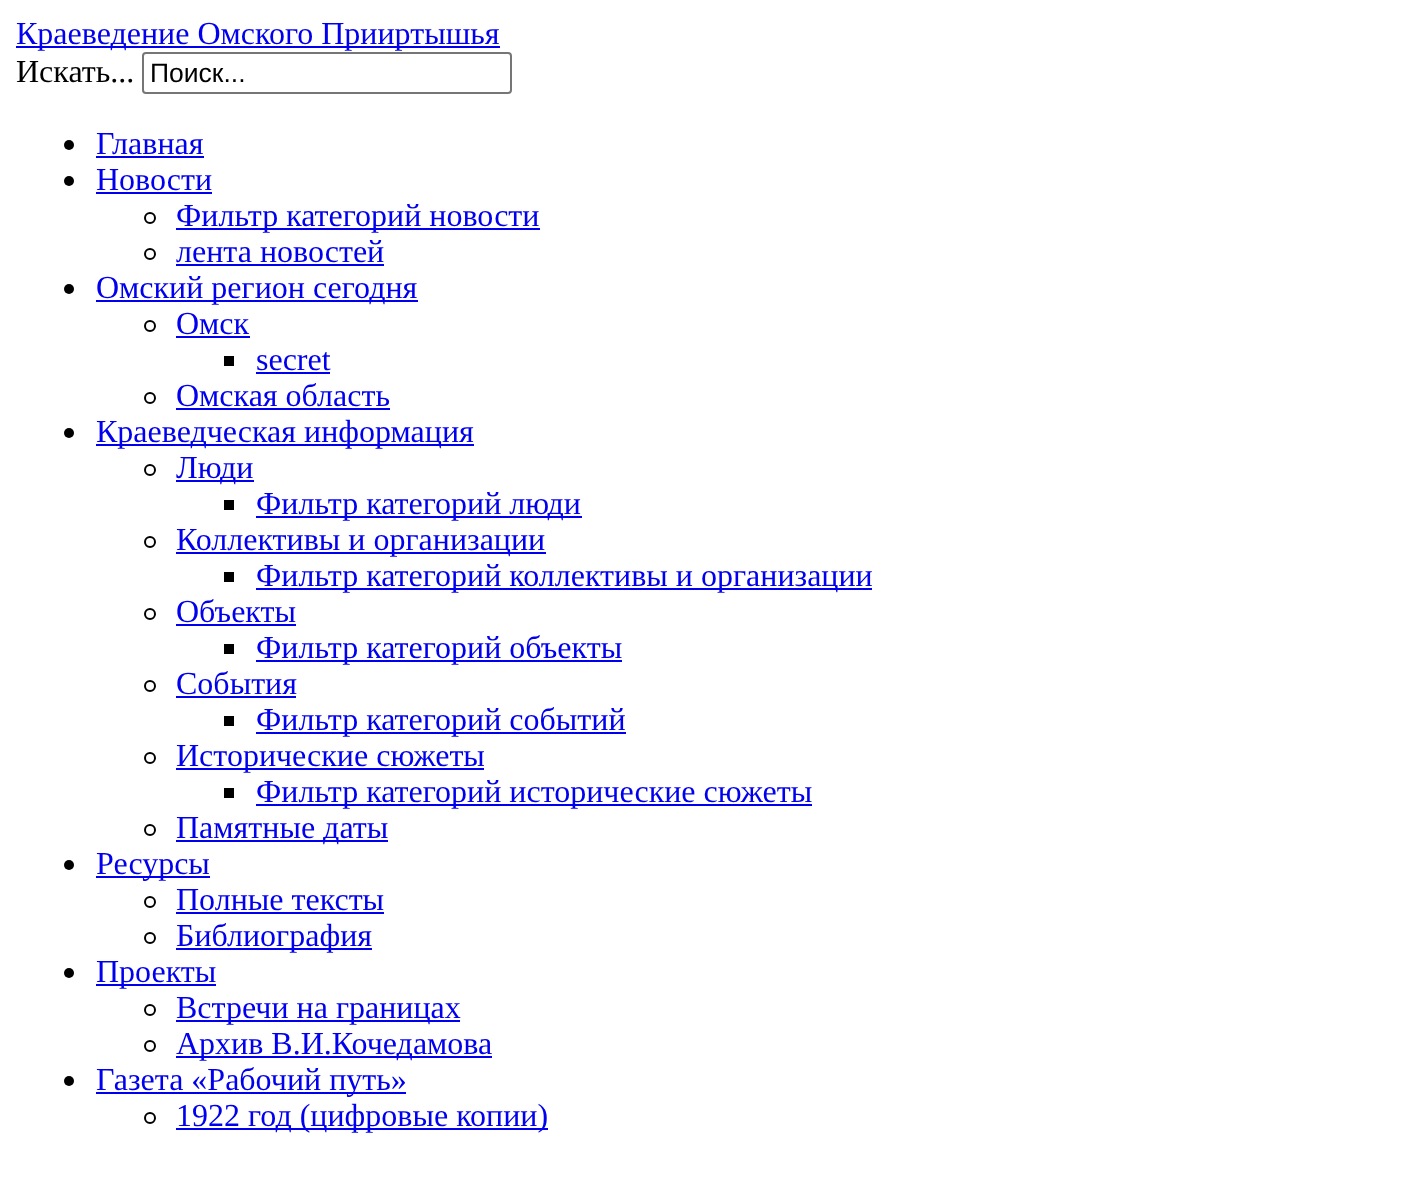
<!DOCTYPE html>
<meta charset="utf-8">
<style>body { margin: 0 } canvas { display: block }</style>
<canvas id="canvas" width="1407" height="1180"></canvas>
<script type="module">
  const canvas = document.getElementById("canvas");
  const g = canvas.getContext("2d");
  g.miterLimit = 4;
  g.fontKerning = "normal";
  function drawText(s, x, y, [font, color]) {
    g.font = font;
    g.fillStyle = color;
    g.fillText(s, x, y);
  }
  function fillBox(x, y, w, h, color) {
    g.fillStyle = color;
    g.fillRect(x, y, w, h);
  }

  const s1 = ["32px Liberation Serif", "#0000EE"];
  const s2 = ["32px Liberation Serif", "#000000"];
  const s3 = ["26.5px Liberation Sans", "#000000"];

  fillBox(0, 0, 1407, 1180, "#FFFFFF");
  fillBox(16, 46, 484, 2, "#0000EE");
  drawText("Краеведение Омского Прииртышья", 16, 44, s1);
  drawText("Искать...", 16, 82, s2);
  g.beginPath();
  g.roundRect(143, 53, 368, 40, 3);
  g.strokeStyle = "#767676";
  g.lineWidth = 2;
  g.stroke();
  drawText("Поиск...", 150, 82, s3);
  g.beginPath();
  g.arc(69, 145, 5, 0, Math.PI * 2);
  g.fill();
  drawText("Главная", 96, 154, s1);
  fillBox(96, 156, 108, 2, "#0000EE");
  g.fillStyle = "#000000";
  g.beginPath();
  g.arc(69, 181, 5, 0, Math.PI * 2);
  g.fill();
  drawText("Новости", 96, 190, s1);
  fillBox(96, 192, 116, 2, "#0000EE");
  g.beginPath();
  g.arc(150, 218, 5, 0, Math.PI * 2);
  g.strokeStyle = "#000000";
  g.stroke();
  fillBox(176, 228, 364, 2, "#0000EE");
  drawText("Фильтр категорий новости", 176, 226, s1);
  g.beginPath();
  g.arc(150, 254, 5, 0, Math.PI * 2);
  g.stroke();
  drawText("лента новостей", 176, 262, s1);
  fillBox(176, 264, 208, 2, "#0000EE");
  g.fillStyle = "#000000";
  g.beginPath();
  g.arc(69, 289, 5, 0, Math.PI * 2);
  g.fill();
  fillBox(96, 300, 322, 2, "#0000EE");
  drawText("Омский регион сегодня", 96, 298, s1);
  g.beginPath();
  g.arc(150, 326, 5, 0, Math.PI * 2);
  g.stroke();
  drawText("Омск", 176, 334, s1);
  fillBox(176, 336, 74, 2, "#0000EE");
  fillBox(224, 356, 10, 10, "#000000");
  drawText("secret", 256, 370, s1);
  fillBox(256, 372, 74, 2, "#0000EE");
  g.beginPath();
  g.arc(150, 398, 5, 0, Math.PI * 2);
  g.stroke();
  drawText("Омская область", 176, 406, s1);
  fillBox(176, 408, 214, 2, "#0000EE");
  g.fillStyle = "#000000";
  g.beginPath();
  g.arc(69, 433, 5, 0, Math.PI * 2);
  g.fill();
  fillBox(96, 444, 378, 2, "#0000EE");
  drawText("Краеведческая информация", 96, 442, s1);
  g.beginPath();
  g.arc(150, 470, 5, 0, Math.PI * 2);
  g.stroke();
  fillBox(176, 480, 78, 2, "#0000EE");
  drawText("Люди", 176, 478, s1);
  fillBox(224, 500, 10, 10, "#000000");
  fillBox(256, 516, 326, 2, "#0000EE");
  drawText("Фильтр категорий люди", 256, 514, s1);
  g.beginPath();
  g.arc(150, 542, 5, 0, Math.PI * 2);
  g.stroke();
  fillBox(176, 552, 370, 2, "#0000EE");
  drawText("Коллективы и организации", 176, 550, s1);
  fillBox(224, 572, 10, 10, "#000000");
  fillBox(256, 588, 616, 2, "#0000EE");
  drawText("Фильтр категорий коллективы и организации", 256, 586, s1);
  g.beginPath();
  g.arc(150, 614, 5, 0, Math.PI * 2);
  g.stroke();
  drawText("Объекты", 176, 622, s1);
  fillBox(176, 624, 120, 2, "#0000EE");
  fillBox(224, 644, 10, 10, "#000000");
  fillBox(256, 660, 366, 2, "#0000EE");
  drawText("Фильтр категорий объекты", 256, 658, s1);
  g.beginPath();
  g.arc(150, 686, 5, 0, Math.PI * 2);
  g.stroke();
  drawText("События", 176, 694, s1);
  fillBox(176, 696, 120, 2, "#0000EE");
  fillBox(224, 716, 10, 10, "#000000");
  fillBox(256, 732, 370, 2, "#0000EE");
  drawText("Фильтр категорий событий", 256, 730, s1);
  g.beginPath();
  g.arc(150, 758, 5, 0, Math.PI * 2);
  g.stroke();
  fillBox(176, 768, 308, 2, "#0000EE");
  drawText("Исторические сюжеты", 176, 766, s1);
  fillBox(224, 788, 10, 10, "#000000");
  fillBox(256, 804, 556, 2, "#0000EE");
  drawText("Фильтр категорий исторические сюжеты", 256, 802, s1);
  g.beginPath();
  g.arc(150, 830, 5, 0, Math.PI * 2);
  g.stroke();
  fillBox(176, 840, 212, 2, "#0000EE");
  drawText("Памятные даты", 176, 838, s1);
  g.fillStyle = "#000000";
  g.beginPath();
  g.arc(69, 865, 5, 0, Math.PI * 2);
  g.fill();
  fillBox(96, 876, 114, 2, "#0000EE");
  drawText("Ресурсы", 96, 874, s1);
  g.beginPath();
  g.arc(150, 902, 5, 0, Math.PI * 2);
  g.stroke();
  drawText("Полные тексты", 176, 910, s1);
  fillBox(176, 912, 208, 2, "#0000EE");
  g.beginPath();
  g.arc(150, 938, 5, 0, Math.PI * 2);
  g.stroke();
  fillBox(176, 948, 196, 2, "#0000EE");
  drawText("Библиография", 176, 946, s1);
  g.fillStyle = "#000000";
  g.beginPath();
  g.arc(69, 973, 5, 0, Math.PI * 2);
  g.fill();
  fillBox(96, 984, 120, 2, "#0000EE");
  drawText("Проекты", 96, 982, s1);
  g.beginPath();
  g.arc(150, 1010, 5, 0, Math.PI * 2);
  g.stroke();
  fillBox(176, 1020, 284, 2, "#0000EE");
  drawText("Встречи на границах", 176, 1018, s1);
  g.beginPath();
  g.arc(150, 1046, 5, 0, Math.PI * 2);
  g.stroke();
  fillBox(176, 1056, 316, 2, "#0000EE");
  drawText("Архив В.И.Кочедамова", 176, 1054, s1);
  g.fillStyle = "#000000";
  g.beginPath();
  g.arc(69, 1081, 5, 0, Math.PI * 2);
  g.fill();
  fillBox(96, 1092, 310, 2, "#0000EE");
  drawText("Газета «Рабочий путь»", 96, 1090, s1);
  g.beginPath();
  g.arc(150, 1118, 5, 0, Math.PI * 2);
  g.stroke();
  fillBox(176, 1128, 372, 2, "#0000EE");
  drawText("1922 год (цифровые копии)", 176, 1126, s1);
</script>
